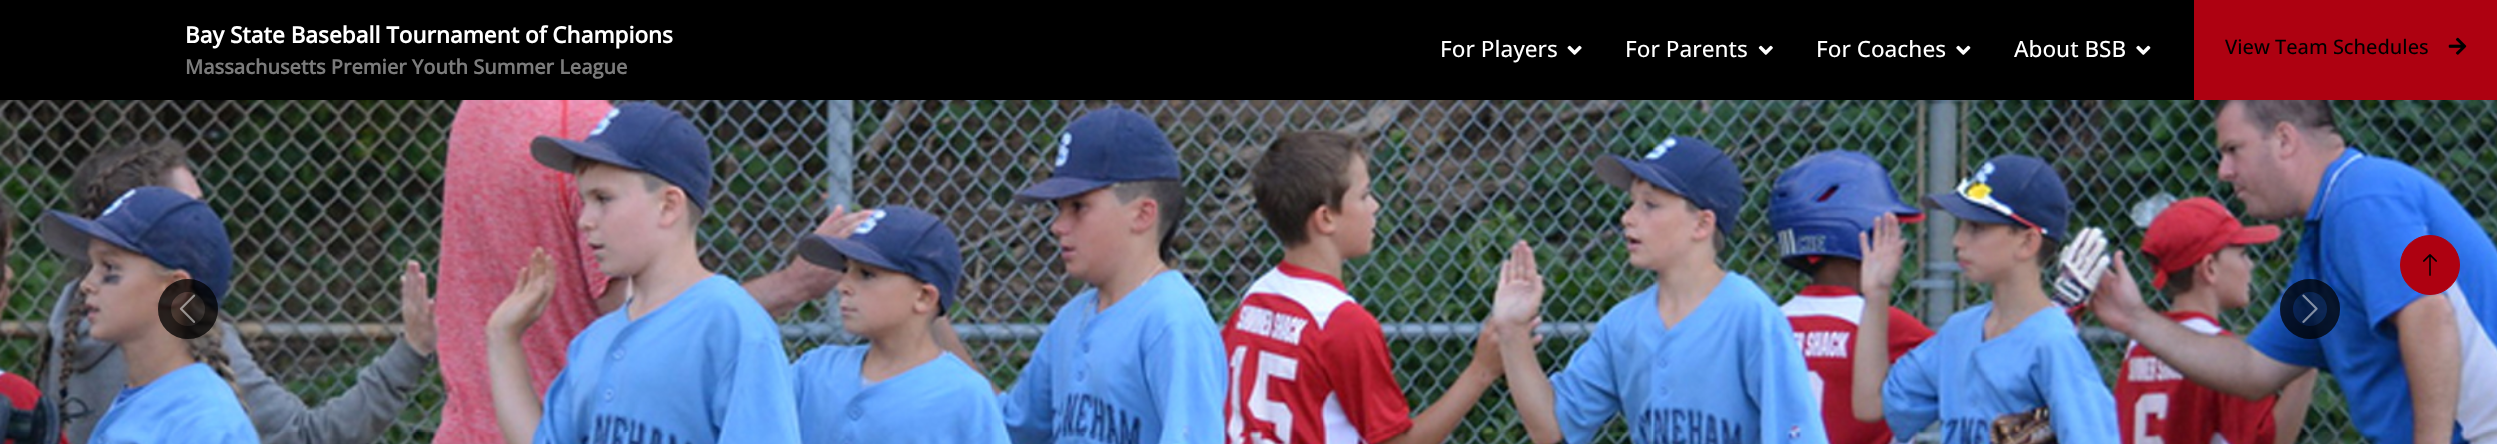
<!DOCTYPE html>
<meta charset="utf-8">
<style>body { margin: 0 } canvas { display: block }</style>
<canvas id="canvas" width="2497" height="444"></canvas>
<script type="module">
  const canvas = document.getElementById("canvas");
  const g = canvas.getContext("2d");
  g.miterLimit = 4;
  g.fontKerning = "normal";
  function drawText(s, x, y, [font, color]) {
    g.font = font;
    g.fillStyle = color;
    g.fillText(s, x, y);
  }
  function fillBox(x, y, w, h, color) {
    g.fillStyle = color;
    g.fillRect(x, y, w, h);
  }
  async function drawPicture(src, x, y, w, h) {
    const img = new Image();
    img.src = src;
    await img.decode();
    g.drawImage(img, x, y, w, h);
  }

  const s1 = ["bold 22.5px Open Sans", "#FFFFFF"];
  const s2 = ["bold 20px Open Sans", "#7B7B7B"];
  const s3 = ["500 22.5px Open Sans", "#FFFFFF"];
  const s4 = ["500 20px Open Sans", "#000000"];

  fillBox(0, 0, 2497, 444, "#FFFFFF");
  fillBox(0, 0, 2194, 100, "#000000");
  drawText("Bay State Baseball Tournament of Champions", 185, 43, s1);
  drawText("Massachusetts Premier Youth Summer League", 185, 74, s2);
  drawText("For Players", 1440, 57, s3);
  await drawPicture("pic1.png", 1567, 45, 15, 10);
  drawText("For Parents", 1625, 57, s3);
  await drawPicture("pic2.png", 1758, 45, 15, 10);
  drawText("For Coaches", 1816, 57, s3);
  await drawPicture("pic3.png", 1956, 45, 15, 10);
  drawText("About BSB", 2014, 57, s3);
  await drawPicture("pic3.png", 2136, 45, 15, 10);
  fillBox(2194, 0, 303, 100, "#AE0111");
  drawText("View Team Schedules", 2225, 54, s4);
  await drawPicture("pic4.png", 2448, 37, 19, 18);
  await drawPicture("pic5.png", 0, 100, 2497, 344);
  g.fillStyle = "rgba(0, 0, 0, 0.5)";
  g.beginPath();
  g.arc(188, 309, 30, 0, Math.PI * 2);
  g.fill();
  await drawPicture("pic6.png", 179, 294, 17, 29);
  g.beginPath();
  g.arc(188, 309, 23.5, 0, Math.PI * 2);
  g.strokeStyle = "rgba(0, 0, 0, 0.5)";
  g.lineWidth = 13;
  g.stroke();
  g.beginPath();
  g.arc(2310, 309, 30, 0, Math.PI * 2);
  g.fill();
  await drawPicture("pic7.png", 2302, 294, 16, 29);
  g.beginPath();
  g.arc(2310, 309, 23.5, 0, Math.PI * 2);
  g.stroke();
  g.fillStyle = "#AE0111";
  g.beginPath();
  g.arc(2430, 265, 29.5, 0, Math.PI * 2);
  g.fill();
  g.strokeStyle = "#AE0111";
  g.lineWidth = 1;
  g.stroke();
  await drawPicture("pic8.png", 2423, 254, 14, 22);
</script>
